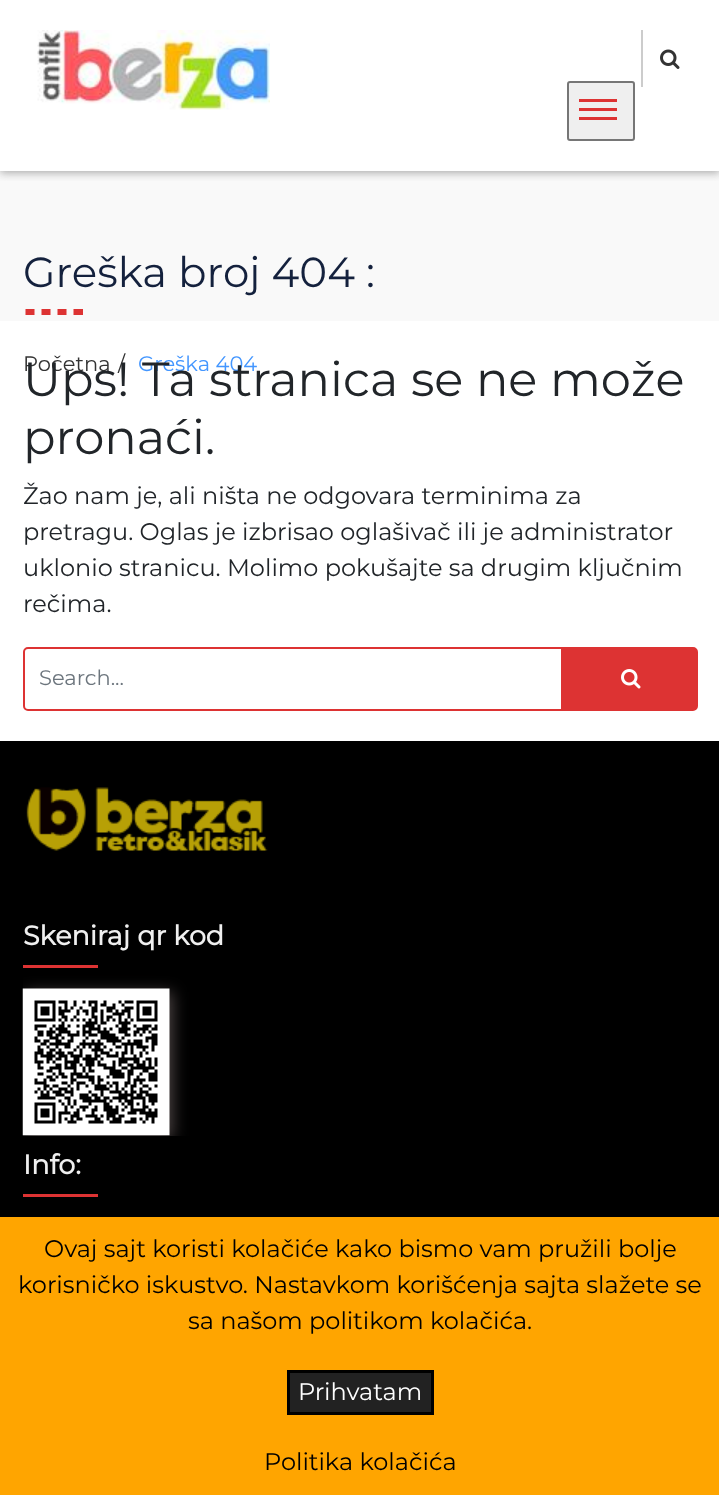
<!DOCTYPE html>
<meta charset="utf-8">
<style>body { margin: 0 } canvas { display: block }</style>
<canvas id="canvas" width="719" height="1495"></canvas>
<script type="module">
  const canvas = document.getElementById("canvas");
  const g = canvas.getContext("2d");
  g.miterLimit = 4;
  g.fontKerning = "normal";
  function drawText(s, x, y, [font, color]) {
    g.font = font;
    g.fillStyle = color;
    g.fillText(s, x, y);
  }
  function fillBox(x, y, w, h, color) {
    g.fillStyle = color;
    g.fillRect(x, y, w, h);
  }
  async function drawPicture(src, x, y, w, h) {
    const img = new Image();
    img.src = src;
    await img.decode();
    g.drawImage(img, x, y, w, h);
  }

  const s1 = ["100 42px Montserrat", "#14213D"];
  const s2 = ["100 21px Montserrat", "#333333"];
  const s3 = ["100 21px Montserrat", "#4396FF"];
  const s4 = ["100 48px Montserrat", "#212529"];
  const s5 = ["100 24px Montserrat", "#212529"];
  const s6 = ["100 21px Montserrat", "#6C757D"];
  const s7 = ["bold 27px Montserrat", "#EFEFEF"];
  const s8 = ["100 24px Montserrat", "#000000"];
  const s9 = ["100 24px Montserrat", "#FFFFFF"];

  fillBox(0, 0, 719, 1495, "#FFFFFF");
  fillBox(0, 171, 719, 150, "#F9F9F9");
  g.save();
  g.beginPath();
  g.rect(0, 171, 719, 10);
  g.clip();
  g.fillStyle = "#ABABAB";
  g.filter = "blur(4px)";
  g.beginPath();
  g.rect(0, 2, 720, 171);
  g.fill();
  g.filter = "none";
  g.restore();
  await drawPicture("pic1.png", 37, 30, 233, 80);
  fillBox(641, 30, 2, 57, "#CCCCCC");
  await drawPicture("pic2.png", 660, 49, 20, 20);
  g.fillStyle = "#EFEFEF";
  g.beginPath();
  g.roundRect(568, 82, 66, 58, 2);
  g.fill();
  g.strokeStyle = "#767676";
  g.lineWidth = 2;
  g.stroke();
  fillBox(579, 99, 38, 3, "#DD3333");
  fillBox(579, 108, 38, 3, "#DD3333");
  fillBox(579, 117, 38, 3, "#DD3333");
  drawText("Greška broj 404 :", 23, 287, s1);
  g.beginPath();
  g.moveTo(25.5, 310.5);
  g.lineTo(82.5, 310.5);
  g.strokeStyle = "#DD3333";
  g.lineWidth = 3;
  g.setLineDash([9, 7]);
  g.stroke();
  fillBox(80, 309, 3, 6, "#DD3333");
  g.beginPath();
  g.moveTo(25.5, 313.5);
  g.lineTo(82.5, 313.5);
  g.stroke();
  drawText("Početna", 23, 371, s2);
  drawText("/", 118, 371, s2);
  drawText("Greška 404", 138, 371, s3);
  drawText("Ups! Ta stranica se ne može", 23, 396, s4);
  drawText("pronaći.", 23, 454, s4);
  drawText("Žao nam je, ali ništa ne odgovara terminima za", 23, 504, s5);
  drawText("pretragu. Oglas je izbrisao oglašivač ili je administrator", 23, 540, s5);
  drawText("uklonio stranicu. Molimo pokušajte sa drugim ključnim", 23, 576, s5);
  drawText("rečima.", 23, 612, s5);
  g.beginPath();
  g.roundRect(24, 648, 538, 62, [4, 0, 0, 4]);
  g.lineWidth = 2;
  g.setLineDash([]);
  g.stroke();
  drawText("Search...", 39, 685, s6);
  g.fillStyle = "#DD3333";
  g.beginPath();
  g.roundRect(564, 648, 133, 62, [0, 4, 4, 0]);
  g.fill();
  g.stroke();
  await drawPicture("pic3.png", 621, 669, 20, 20);
  fillBox(0, 741, 719, 476, "#000000");
  await drawPicture("pic4.png", 26, 787, 242, 64);
  drawText("Skeniraj qr kod", 23, 945, s7);
  fillBox(23, 965, 75, 3, "#DD3333");
  g.save();
  g.beginPath();
  g.rect(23, 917, 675, 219);
  g.clip();
  g.fillStyle = "#4A4242";
  g.filter = "blur(7.5px)";
  g.beginPath();
  g.rect(26, 992, 147, 147);
  g.fill();
  g.filter = "none";
  g.restore();
  await drawPicture("pic5.png", 22, 988, 148, 148);
  drawText("Info:", 23, 1174, s7);
  fillBox(23, 1194, 75, 3, "#DD3333");
  fillBox(0, 1217, 719, 278, "#FFA500");
  drawText("Ovaj sajt koristi kolačiće kako bismo vam pružili bolje", 44, 1257, s8);
  drawText("korisničko iskustvo. Nastavkom korišćenja sajta slažete se", 18, 1293, s8);
  drawText("sa našom politikom kolačića.", 188, 1329, s8);
  g.fillStyle = "#222222";
  g.beginPath();
  g.rect(288.5, 1371.5, 144, 42);
  g.fill();
  g.strokeStyle = "#000000";
  g.lineWidth = 3;
  g.stroke();
  drawText("Prihvatam", 298, 1400, s9);
  drawText("Politika kolačića", 264, 1470, s8);
</script>
